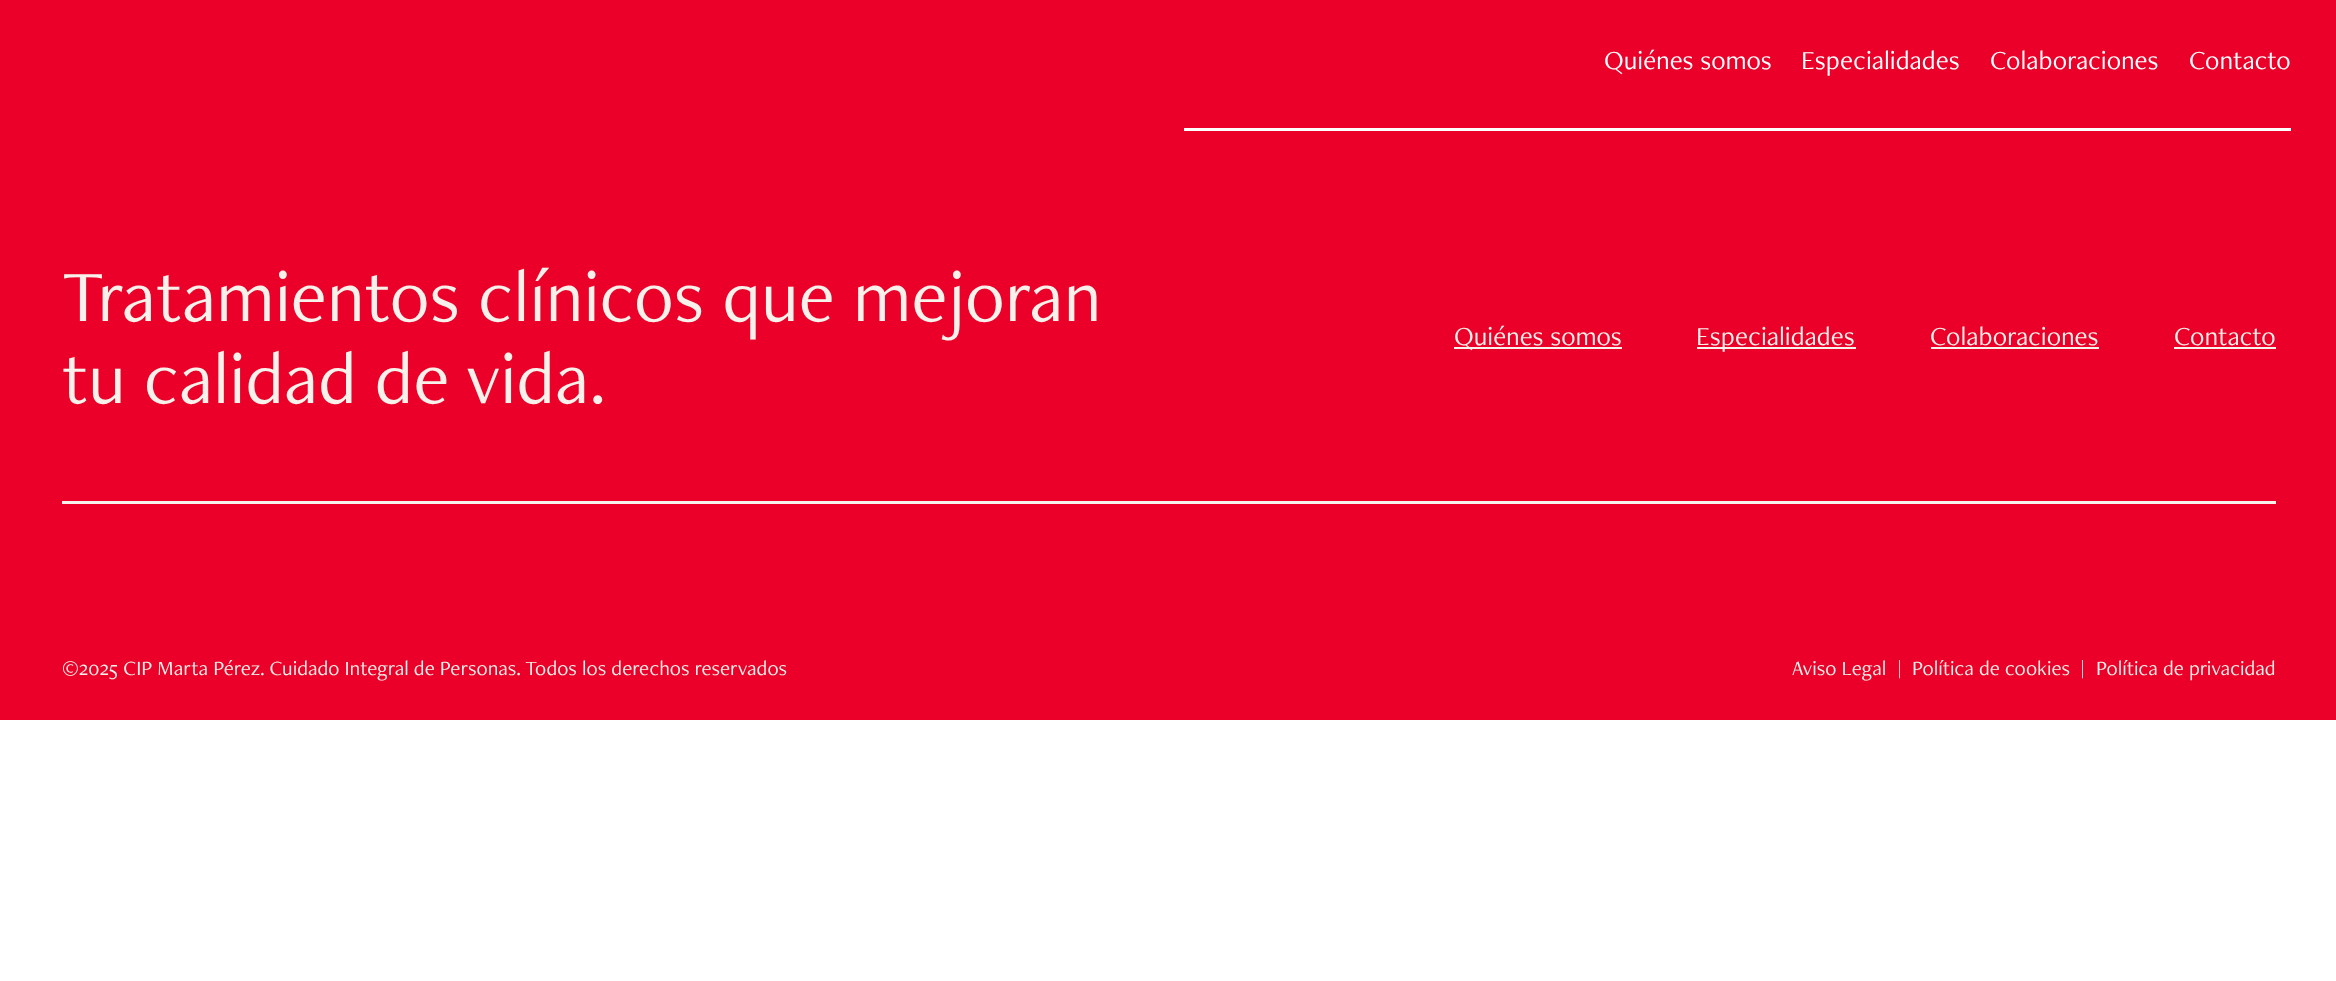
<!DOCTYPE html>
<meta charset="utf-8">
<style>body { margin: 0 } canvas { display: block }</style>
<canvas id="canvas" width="2336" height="981"></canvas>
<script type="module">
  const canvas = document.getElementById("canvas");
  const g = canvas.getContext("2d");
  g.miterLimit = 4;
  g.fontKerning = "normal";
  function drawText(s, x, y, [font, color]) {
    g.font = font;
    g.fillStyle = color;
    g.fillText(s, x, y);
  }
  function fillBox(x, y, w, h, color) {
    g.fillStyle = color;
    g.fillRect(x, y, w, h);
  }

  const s1 = ["27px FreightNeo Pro", "#FFFFFF"];
  const s2 = ["75px FreightNeo Pro", "#F6F1EA"];
  const s3 = ["27px FreightNeo Pro", "#F6F1EA"];
  const s4 = ["21px FreightNeo Pro", "#F6F1EA"];

  fillBox(0, 0, 2336, 981, "#FFFFFF");
  fillBox(0, 0, 2336, 720, "#EA0029");
  drawText("Quiénes somos", 1604, 69, s1);
  drawText("Especialidades", 1801, 69, s1);
  drawText("Colaboraciones", 1990, 69, s1);
  drawText("Contacto", 2189, 69, s1);
  fillBox(1184, 128, 1107, 3, "#FFFFFF");
  drawText("Tratamientos clínicos que mejoran", 62, 321, s2);
  drawText("tu calidad de vida.", 62, 403, s2);
  fillBox(1454, 347, 168, 2, "#F6F1EA");
  drawText("Quiénes somos", 1454, 345, s3);
  fillBox(1697, 347, 159, 2, "#F6F1EA");
  drawText("Especialidades", 1696, 345, s3);
  drawText("Colaboraciones", 1930, 345, s3);
  fillBox(1931, 347, 168, 2, "#F6F1EA");
  drawText("Contacto", 2174, 345, s3);
  fillBox(2174, 347, 102, 2, "#F6F1EA");
  fillBox(62, 501, 2214, 3, "#F6F1EA");
  drawText("©2025 CIP Marta Pérez. Cuidado Integral de Personas. Todos los derechos reservados", 62, 675, s4);
  drawText("Aviso Legal", 1792, 675, s4);
  drawText("|", 1897, 675, s4);
  drawText("Política de cookies", 1912, 675, s4);
  drawText("|", 2080, 675, s4);
  drawText("Política de privacidad", 2096, 675, s4);
</script>
